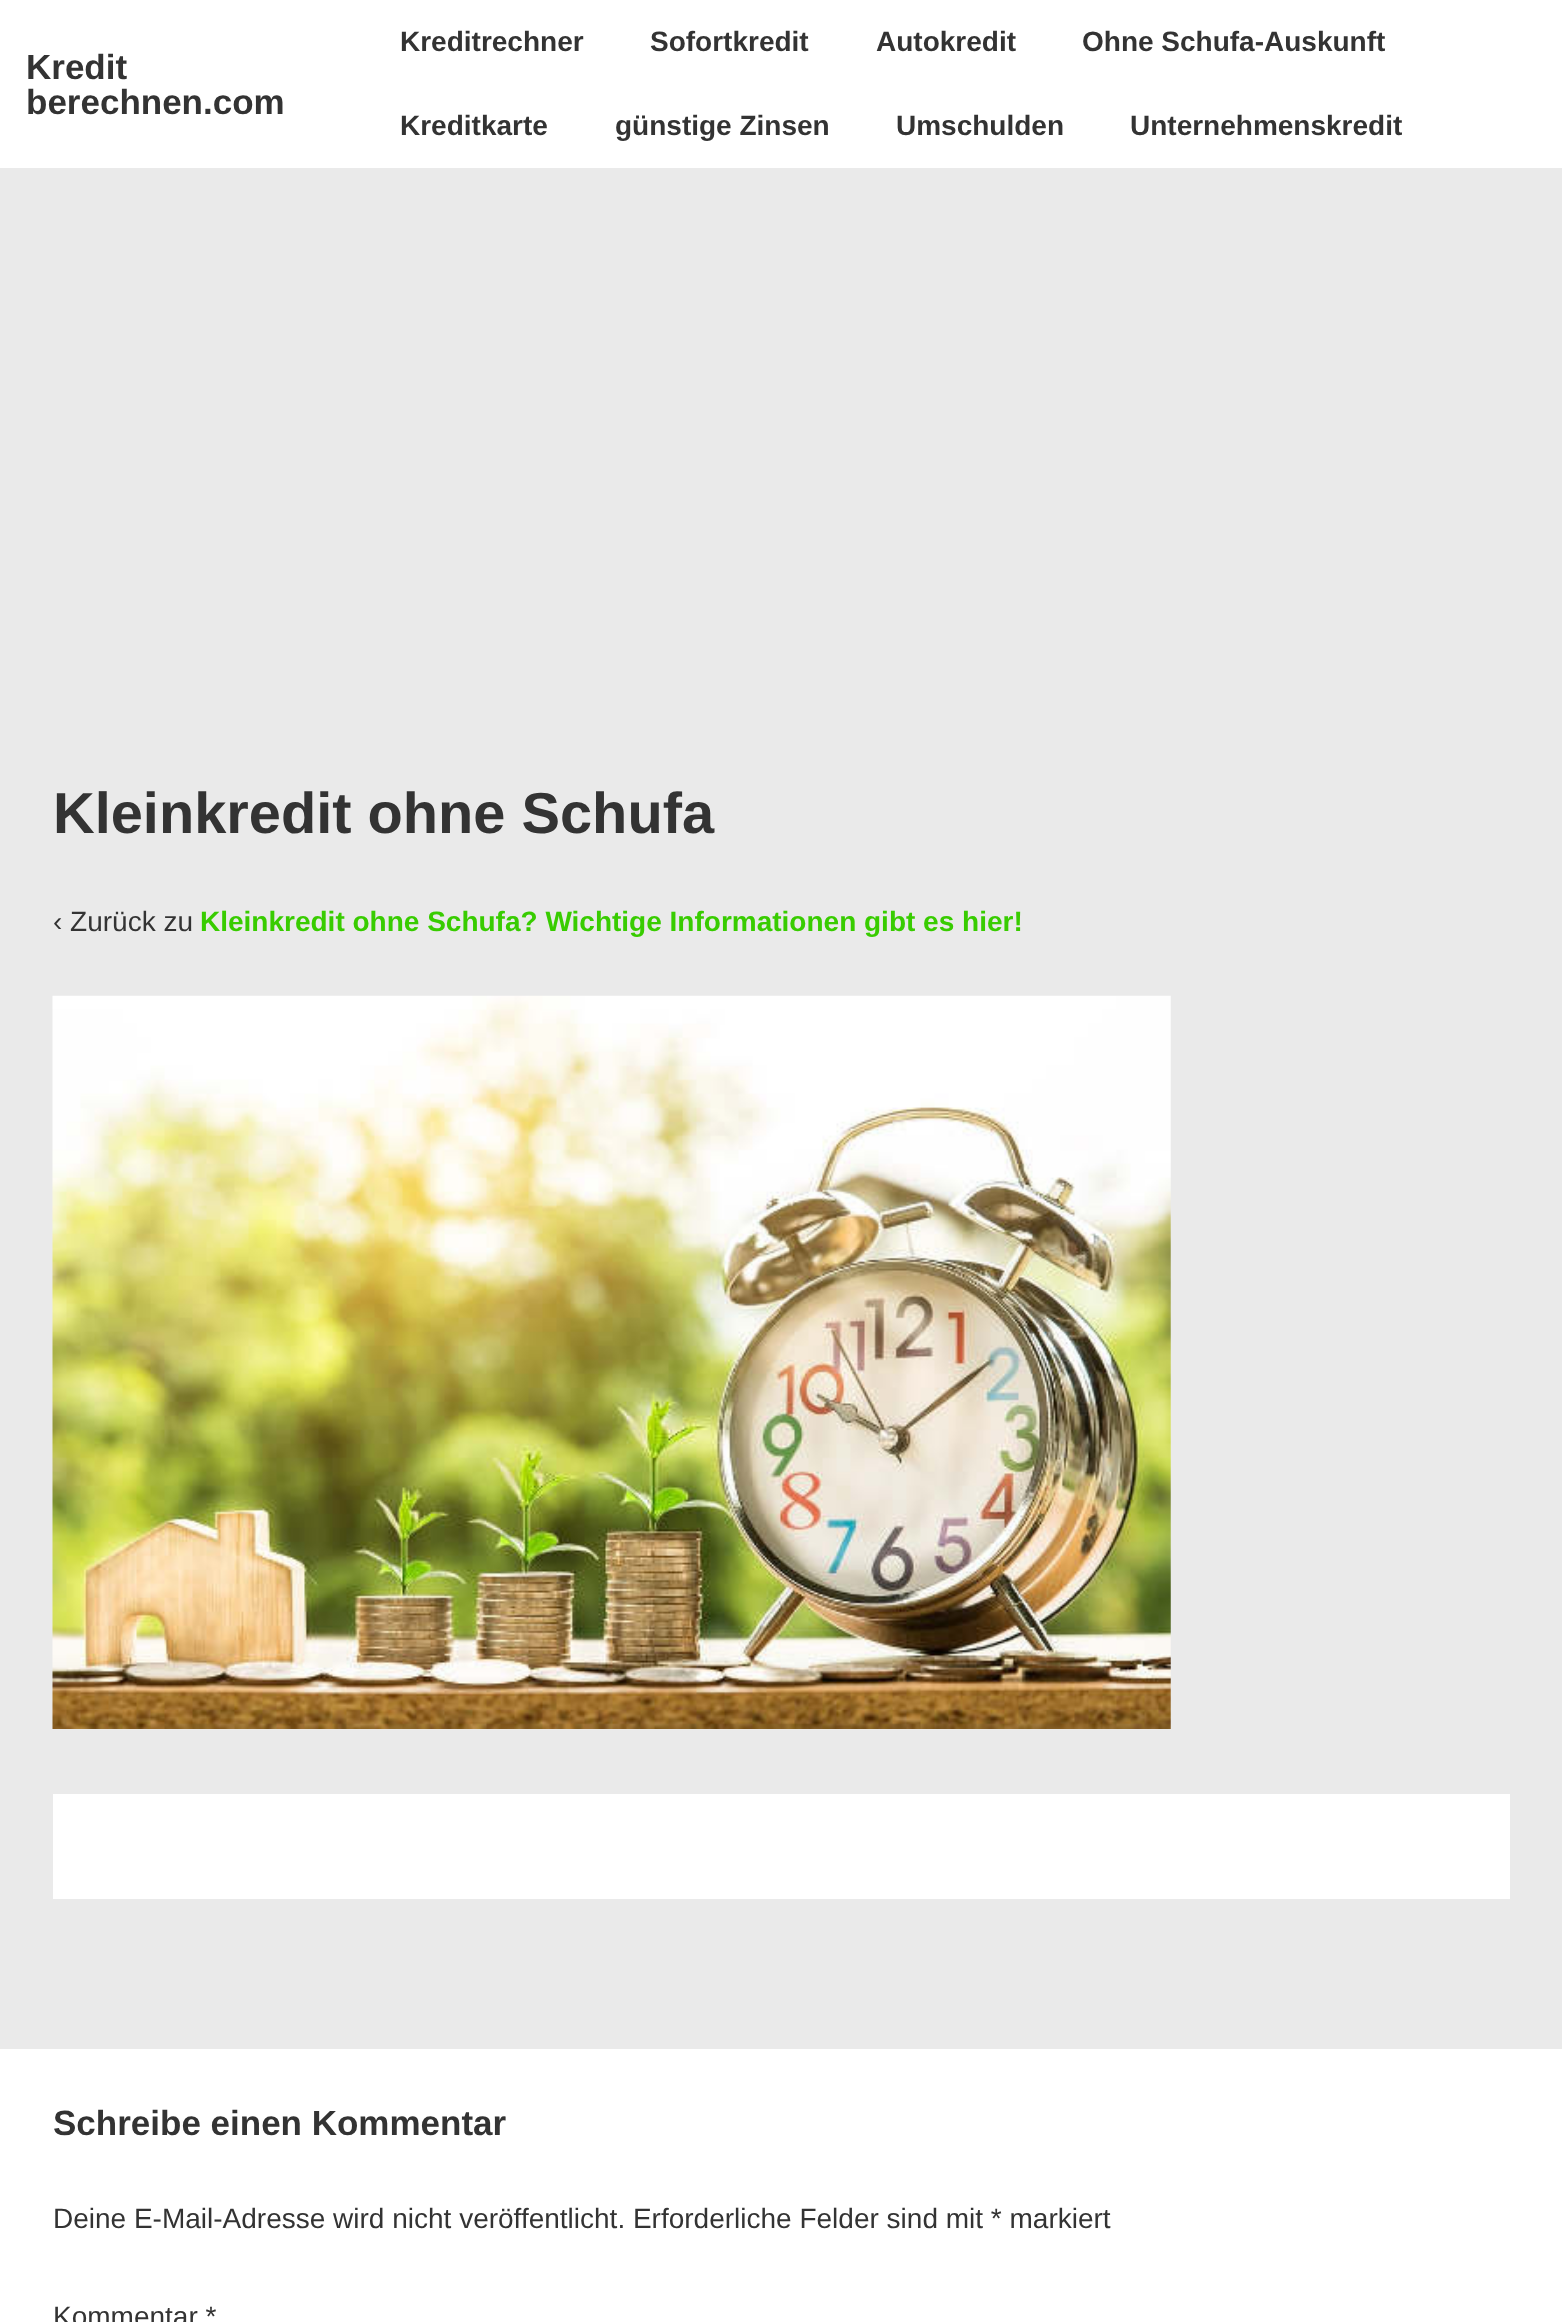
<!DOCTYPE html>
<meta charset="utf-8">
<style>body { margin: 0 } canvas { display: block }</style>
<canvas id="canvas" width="1562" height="2322"></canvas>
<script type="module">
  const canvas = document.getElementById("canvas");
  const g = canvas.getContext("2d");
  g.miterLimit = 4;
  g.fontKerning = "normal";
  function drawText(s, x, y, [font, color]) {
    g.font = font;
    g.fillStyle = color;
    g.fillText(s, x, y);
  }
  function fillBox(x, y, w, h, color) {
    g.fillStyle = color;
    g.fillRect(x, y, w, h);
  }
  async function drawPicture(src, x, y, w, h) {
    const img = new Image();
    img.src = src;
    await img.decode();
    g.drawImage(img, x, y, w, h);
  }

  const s1 = ["bold 35px Liberation Sans", "#333333"];
  const s2 = ["bold 28px Liberation Sans", "#333333"];
  const s3 = ["bold 57.75px Liberation Sans", "#333333"];
  const s4 = ["28px Liberation Sans", "#333333"];
  const s5 = ["bold 28px Liberation Sans", "#38CC00"];

  fillBox(0, 0, 1562, 2322, "#EAEAEA");
  fillBox(0, 0, 1562, 168, "#FFFFFF");
  drawText("Kredit", 26, 79, s1);
  drawText("berechnen.com", 26, 114, s1);
  drawText("Kreditrechner", 400, 51, s2);
  drawText("Sofortkredit", 650, 51, s2);
  drawText("Autokredit", 876, 51, s2);
  drawText("Ohne Schufa-Auskunft", 1082, 51, s2);
  drawText("Kreditkarte", 400, 135, s2);
  drawText("günstige Zinsen", 615, 135, s2);
  drawText("Umschulden", 896, 135, s2);
  drawText("Unternehmenskredit", 1130, 135, s2);
  drawText("Kleinkredit ohne Schufa", 53, 833, s3);
  drawText("‹ Zurück zu", 53, 931, s4);
  drawText("Kleinkredit ohne Schufa? Wichtige Informationen gibt es hier!", 200, 931, s5);
  await drawPicture("pic1.png", 52, 995, 1119, 734);
  fillBox(53, 1794, 1457, 105, "#FFFFFF");
  fillBox(0, 2049, 1562, 273, "#FFFFFF");
  drawText("Schreibe einen Kommentar", 53, 2135, s1);
  drawText("Deine E-Mail-Adresse wird nicht veröffentlicht. Erforderliche Felder sind mit * markiert", 53, 2228, s4);
  drawText("Kommentar *", 53, 2326, s4);
</script>
